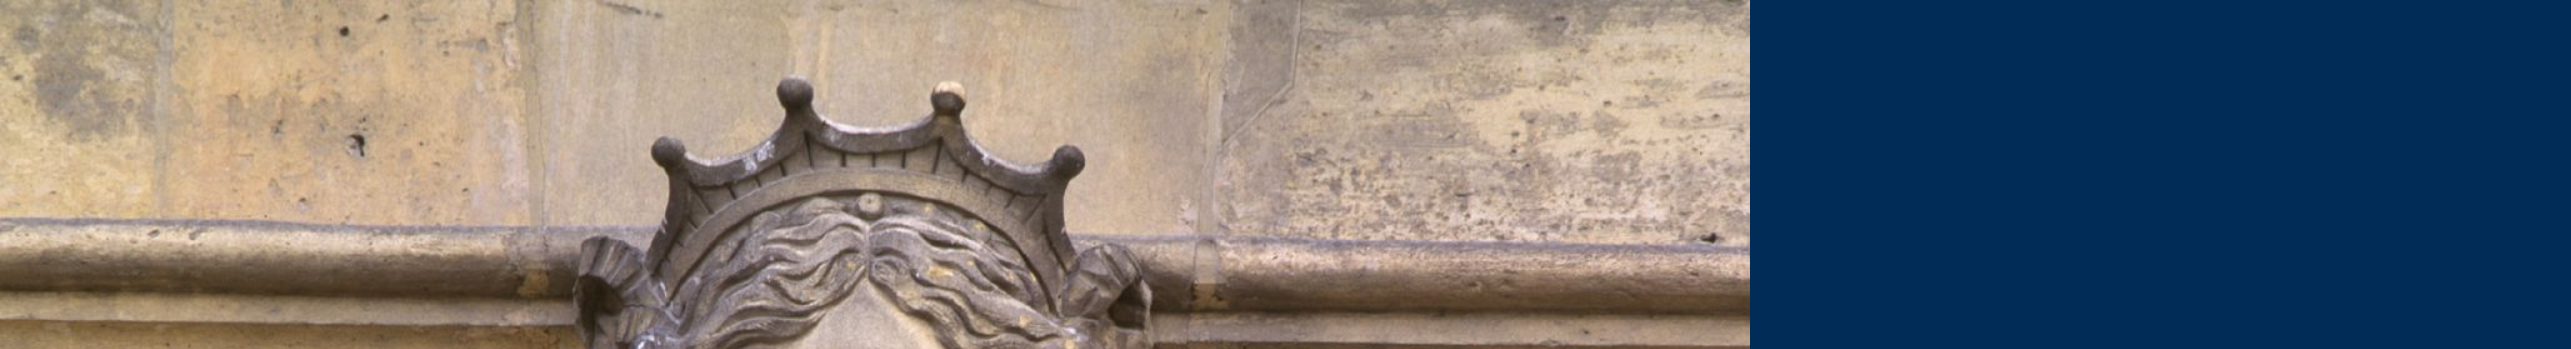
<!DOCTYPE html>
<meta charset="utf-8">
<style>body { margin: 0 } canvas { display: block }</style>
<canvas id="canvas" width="2571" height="349"></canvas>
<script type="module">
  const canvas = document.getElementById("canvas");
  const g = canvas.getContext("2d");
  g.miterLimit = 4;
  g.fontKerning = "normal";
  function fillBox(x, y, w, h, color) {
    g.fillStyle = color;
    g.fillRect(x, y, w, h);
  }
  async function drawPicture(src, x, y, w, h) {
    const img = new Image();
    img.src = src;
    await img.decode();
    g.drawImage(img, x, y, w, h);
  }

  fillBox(0, 0, 2571, 349, "#002C57");
  await drawPicture("pic1.png", 0, 0, 1750, 349);
</script>
